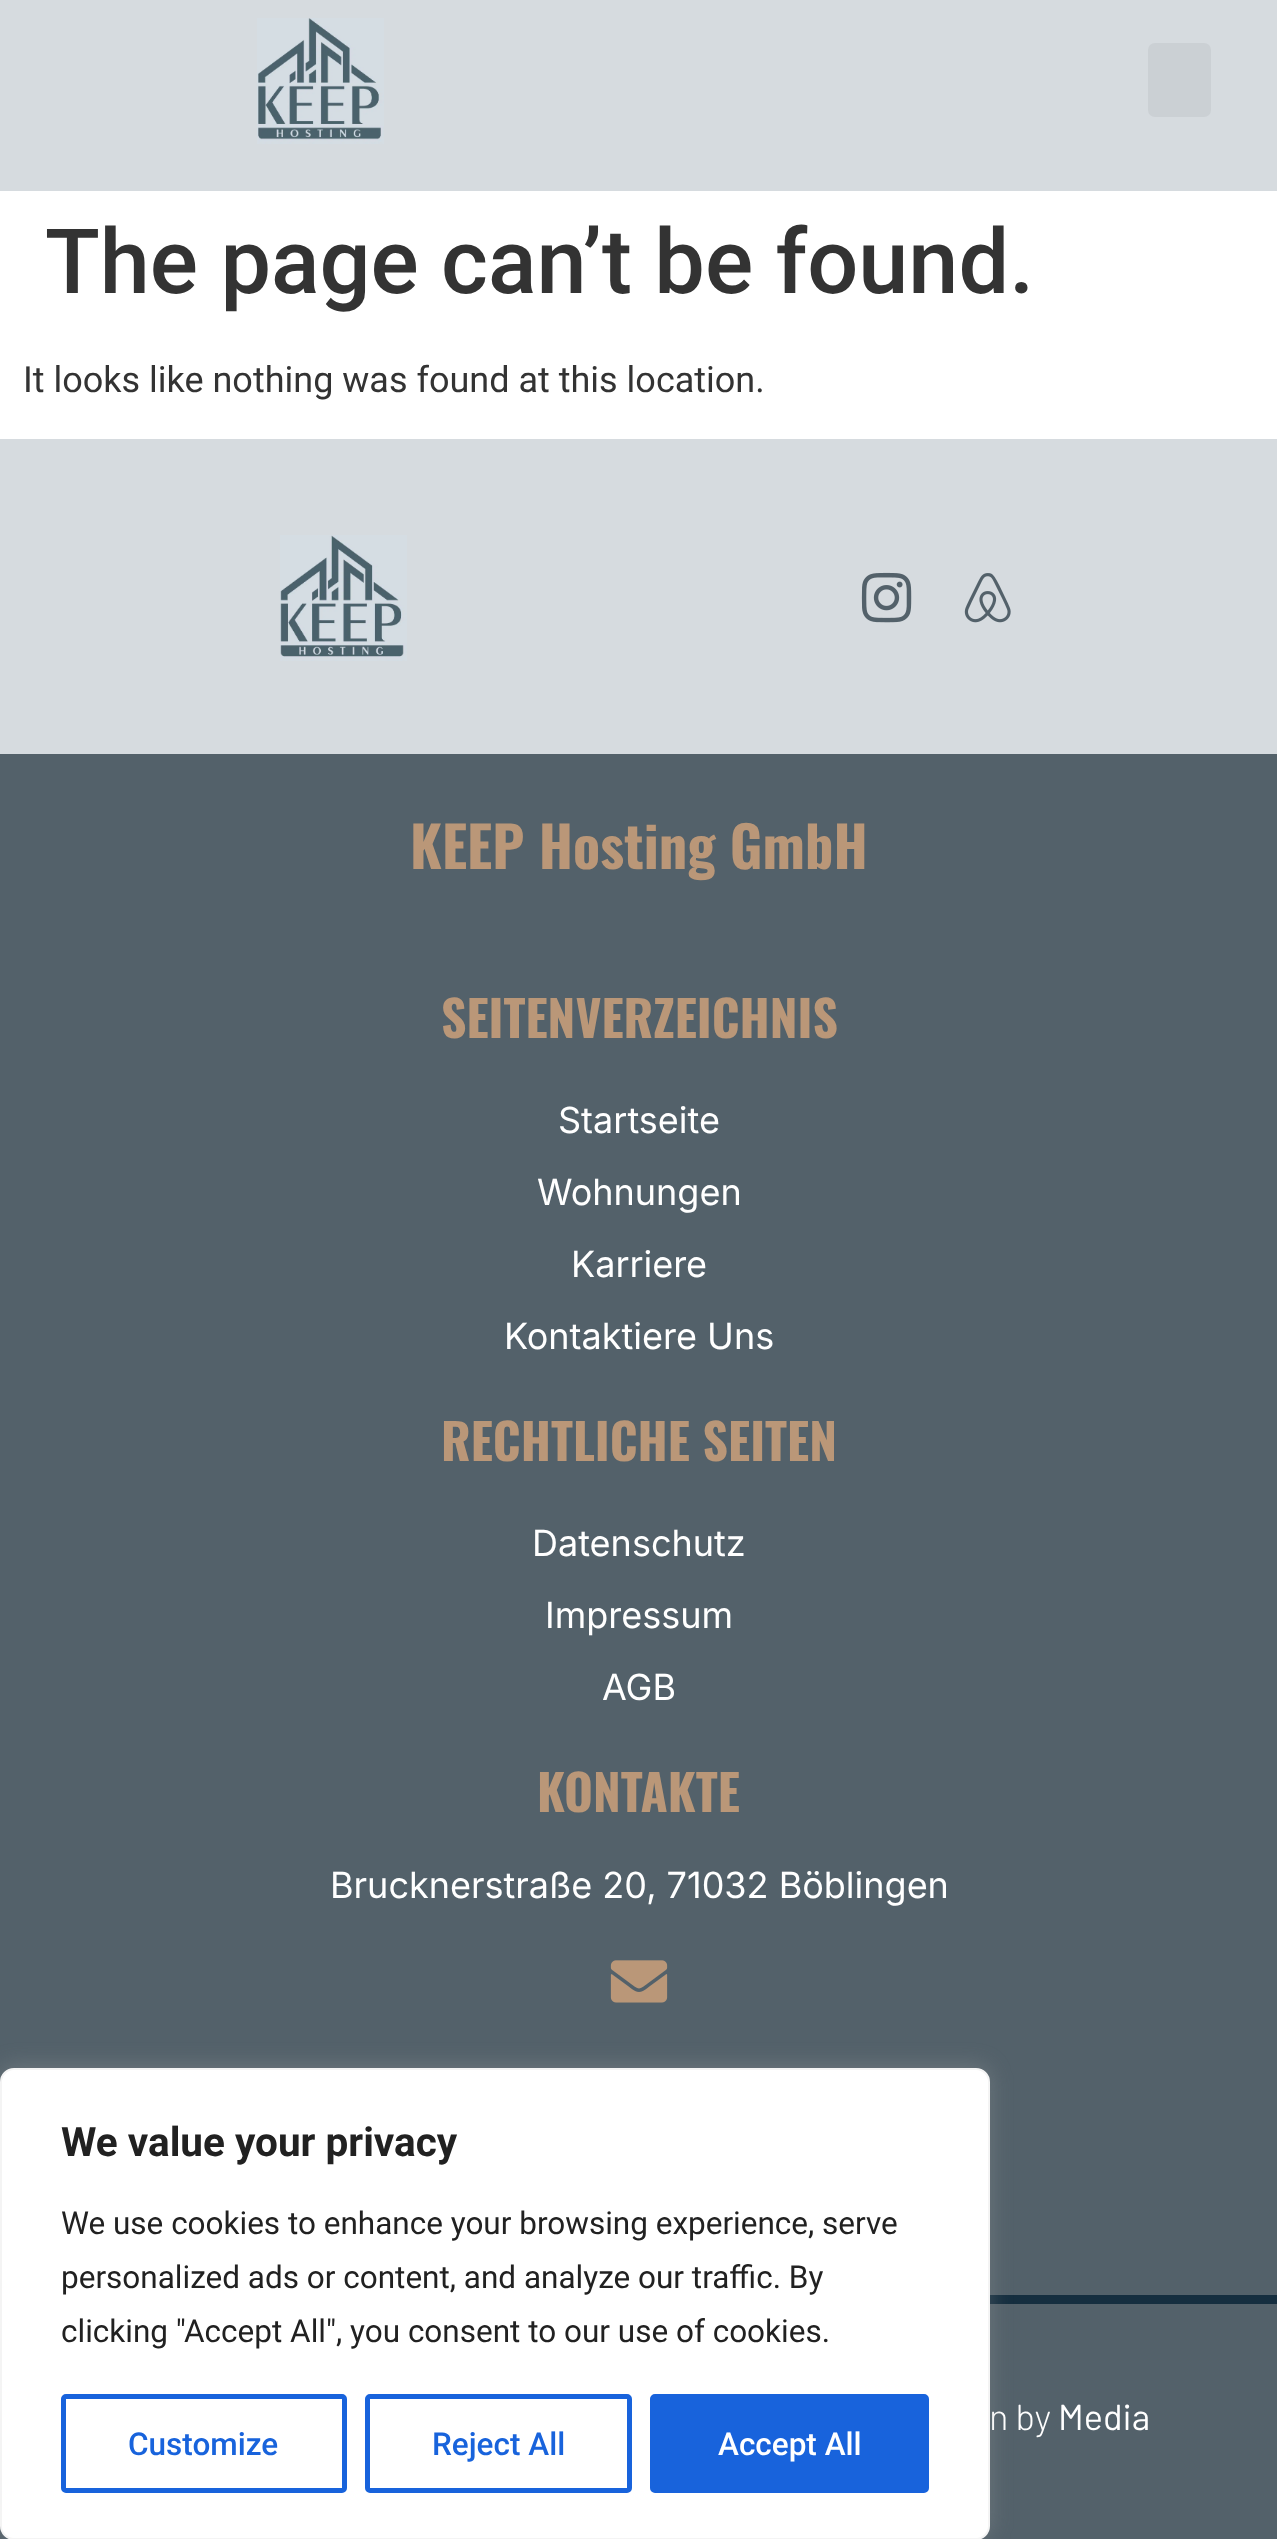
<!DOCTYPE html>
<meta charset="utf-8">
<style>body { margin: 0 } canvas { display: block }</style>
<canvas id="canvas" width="1277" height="2539"></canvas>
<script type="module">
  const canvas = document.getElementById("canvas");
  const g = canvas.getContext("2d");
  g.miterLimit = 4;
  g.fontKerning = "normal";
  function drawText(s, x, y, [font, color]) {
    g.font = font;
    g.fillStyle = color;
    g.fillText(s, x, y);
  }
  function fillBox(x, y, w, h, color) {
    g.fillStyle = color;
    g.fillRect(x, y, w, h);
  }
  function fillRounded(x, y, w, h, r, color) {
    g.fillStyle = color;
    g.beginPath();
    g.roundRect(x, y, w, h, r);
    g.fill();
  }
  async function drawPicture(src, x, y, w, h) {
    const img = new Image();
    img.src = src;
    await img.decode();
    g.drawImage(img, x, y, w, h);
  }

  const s1 = ["500 90px Roboto", "#333333"];
  const s2 = ["36px Roboto", "#333333"];
  const s3 = ["bold 56.25px Oswald", "#BA9778"];
  const s4 = ["bold 49.5px Oswald", "#BA9778"];
  const s5 = ["36px Inter", "#FFFFFF"];
  const s6 = ["300 36px Barlow", "#FFFFFF"];
  const s7 = ["36px Barlow", "#FFFFFF"];
  const s8 = ["bold 40.5px Roboto", "#212121"];
  const s9 = ["31.5px Roboto", "#212121"];
  const s10 = ["500 31.5px Roboto", "#1863DC"];
  const s11 = ["500 31.5px Roboto", "#FFFFFF"];

  fillBox(0, 0, 1277, 2539, "#FFFFFF");
  fillBox(0, 0, 1277, 191, "#D6DBDF");
  await drawPicture("pic1.png", 257, 18, 127, 126);
  fillRounded(1148, 43, 63, 74, 7, "#CBD0D4");
  drawText("The page can’t be found.", 45, 293, s1);
  drawText("It looks like nothing was found at this location.", 23, 392, s2);
  fillBox(0, 754, 1277, 1541, "#53616A");
  fillBox(0, 439, 1277, 315, "#D6DBDF");
  await drawPicture("pic2.png", 280, 535, 127, 126);
  await drawPicture("pic3.png", 861, 572, 51, 51);
  await drawPicture("pic4.png", 964, 573, 47, 50);
  drawText("KEEP Hosting GmbH", 410, 869, s3);
  drawText("SEITENVERZEICHNIS", 441, 1038, s4);
  drawText("Startseite", 558, 1133, s5);
  drawText("Wohnungen", 537, 1205, s5);
  drawText("Karriere", 571, 1277, s5);
  drawText("Kontaktiere Uns", 504, 1349, s5);
  drawText("RECHTLICHE SEITEN", 441, 1461, s4);
  drawText("Datenschutz", 532, 1556, s5);
  drawText("Impressum", 545, 1628, s5);
  drawText("AGB", 602, 1700, s5);
  drawText("KONTAKTE", 537, 1812, s4);
  drawText("Brucknerstraße 20, 71032 Böblingen", 330, 1898, s5);
  await drawPicture("pic5.png", 610, 1960, 58, 43);
  fillBox(0, 2304, 1277, 235, "#53616A");
  fillBox(990, 2295, 287, 9, "#152E3F");
  drawText("n by", 989, 2430, s6);
  drawText("Media", 1058, 2430, s7);
  g.fillStyle = "rgba(172, 171, 171, 0.3)";
  g.filter = "blur(11px)";
  g.beginPath();
  g.roundRect(0, 2066, 990, 472, 14);
  g.fill();
  g.filter = "none";
  g.fillStyle = "#FFFFFF";
  g.beginPath();
  g.roundRect(1, 2069, 988, 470, 13);
  g.fill();
  g.strokeStyle = "#F4F4F4";
  g.lineWidth = 2;
  g.stroke();
  drawText("We value your privacy", 61, 2156, s8);
  drawText("We use cookies to enhance your browsing experience, serve", 61, 2234, s9);
  drawText("personalized ads or content, and analyze our traffic. By", 61, 2288, s9);
  drawText("clicking \"Accept All\", you consent to our use of cookies.", 61, 2342, s9);
  g.beginPath();
  g.roundRect(63.5, 2396.5, 281, 94, 2.5);
  g.strokeStyle = "#1863DC";
  g.lineWidth = 5;
  g.stroke();
  drawText("Customize", 128, 2455, s10);
  g.beginPath();
  g.roundRect(367.5, 2396.5, 262, 94, 2.5);
  g.stroke();
  drawText("Reject All", 432, 2455, s10);
  g.beginPath();
  g.roundRect(652.5, 2396.5, 274, 94, 2.5);
  g.fill();
  g.stroke();
  drawText("Accept All", 718, 2455, s11);
</script>
